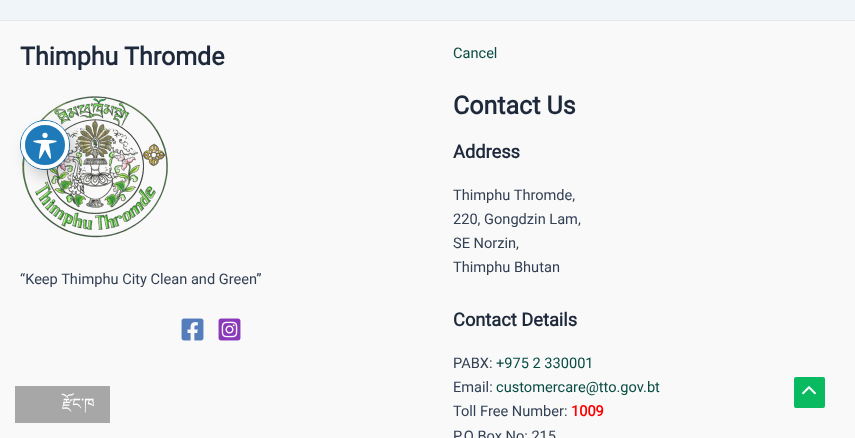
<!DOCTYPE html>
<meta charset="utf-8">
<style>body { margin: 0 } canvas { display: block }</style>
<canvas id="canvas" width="855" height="438"></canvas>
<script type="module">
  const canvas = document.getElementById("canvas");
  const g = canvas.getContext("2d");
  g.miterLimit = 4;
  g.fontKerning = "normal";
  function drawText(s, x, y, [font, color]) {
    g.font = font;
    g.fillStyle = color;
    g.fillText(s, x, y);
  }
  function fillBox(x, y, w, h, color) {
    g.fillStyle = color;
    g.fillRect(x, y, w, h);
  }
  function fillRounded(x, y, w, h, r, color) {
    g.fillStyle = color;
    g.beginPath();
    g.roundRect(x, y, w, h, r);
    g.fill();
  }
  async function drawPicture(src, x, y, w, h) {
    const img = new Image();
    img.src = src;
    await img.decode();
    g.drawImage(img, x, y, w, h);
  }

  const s1 = ["bold 25px Roboto", "#1E293B"];
  const s2 = ["14.6px Roboto", "#334155"];
  const s3 = ["14.6px Roboto", "#084C42"];
  const s4 = ["bold 18.25px Roboto", "#1E293B"];
  const s5 = ["bold 14.6px Roboto", "#FF0000"];
  const s6 = ["15px Noto Serif Tibetan", "#FFFFFF"];

  fillBox(0, 0, 855, 438, "#F0F5FA");
  fillBox(0, 21, 855, 417, "#F9F9F9");
  fillBox(0, 20, 855, 1, "#E6E6E6");
  drawText("Thimphu Thromde", 20, 65, s1);
  await drawPicture("pic1.png", 22, 96, 146, 142);
  drawText("“Keep Thimphu City Clean and Green”", 20, 284, s2);
  await drawPicture("pic2.png", 181, 318, 23, 23);
  await drawPicture("pic3.png", 218, 318, 23, 23);
  drawText("Cancel", 453, 58, s3);
  drawText("Contact Us", 453, 114, s1);
  drawText("Address", 453, 158, s4);
  drawText("Thimphu Thromde,", 453, 200, s2);
  drawText("220, Gongdzin Lam,", 453, 224, s2);
  drawText("SE Norzin,", 453, 248, s2);
  drawText("Thimphu Bhutan", 453, 272, s2);
  drawText("Contact Details", 453, 326, s4);
  drawText("PABX:", 453, 368, s2);
  drawText("+975 2 330001", 496, 368, s3);
  drawText("Email:", 453, 392, s2);
  drawText("customercare@tto.gov.bt", 496, 392, s3);
  drawText("Toll Free Number:", 453, 416, s2);
  drawText("1009", 571, 416, s5);
  drawText("P.O Box No: 215", 453, 441, s2);
  g.beginPath();
  g.arc(45, 145, 24.5, 0, Math.PI * 2);
  g.strokeStyle = "#1E7AB9";
  g.stroke();
  g.fillStyle = "rgba(0, 0, 0, 0.2)";
  g.filter = "blur(8px)";
  g.beginPath();
  g.roundRect(27, 129, 48, 48, 24);
  g.fill();
  g.filter = "none";
  g.fillStyle = "#1E7AB9";
  g.beginPath();
  g.arc(45, 145, 22, 0, Math.PI * 2);
  g.fill();
  g.strokeStyle = "#FFFFFF";
  g.lineWidth = 4;
  g.stroke();
  await drawPicture("pic4.png", 33, 132, 24, 27);
  fillBox(15, 386, 95, 37, "#A7A7A7");
  drawText("རྫོང་ཁ", 62, 409, s6);
  fillRounded(794, 377, 31, 31, 2, "#09BA61");
  await drawPicture("pic5.png", 802, 386, 15, 9);
</script>
